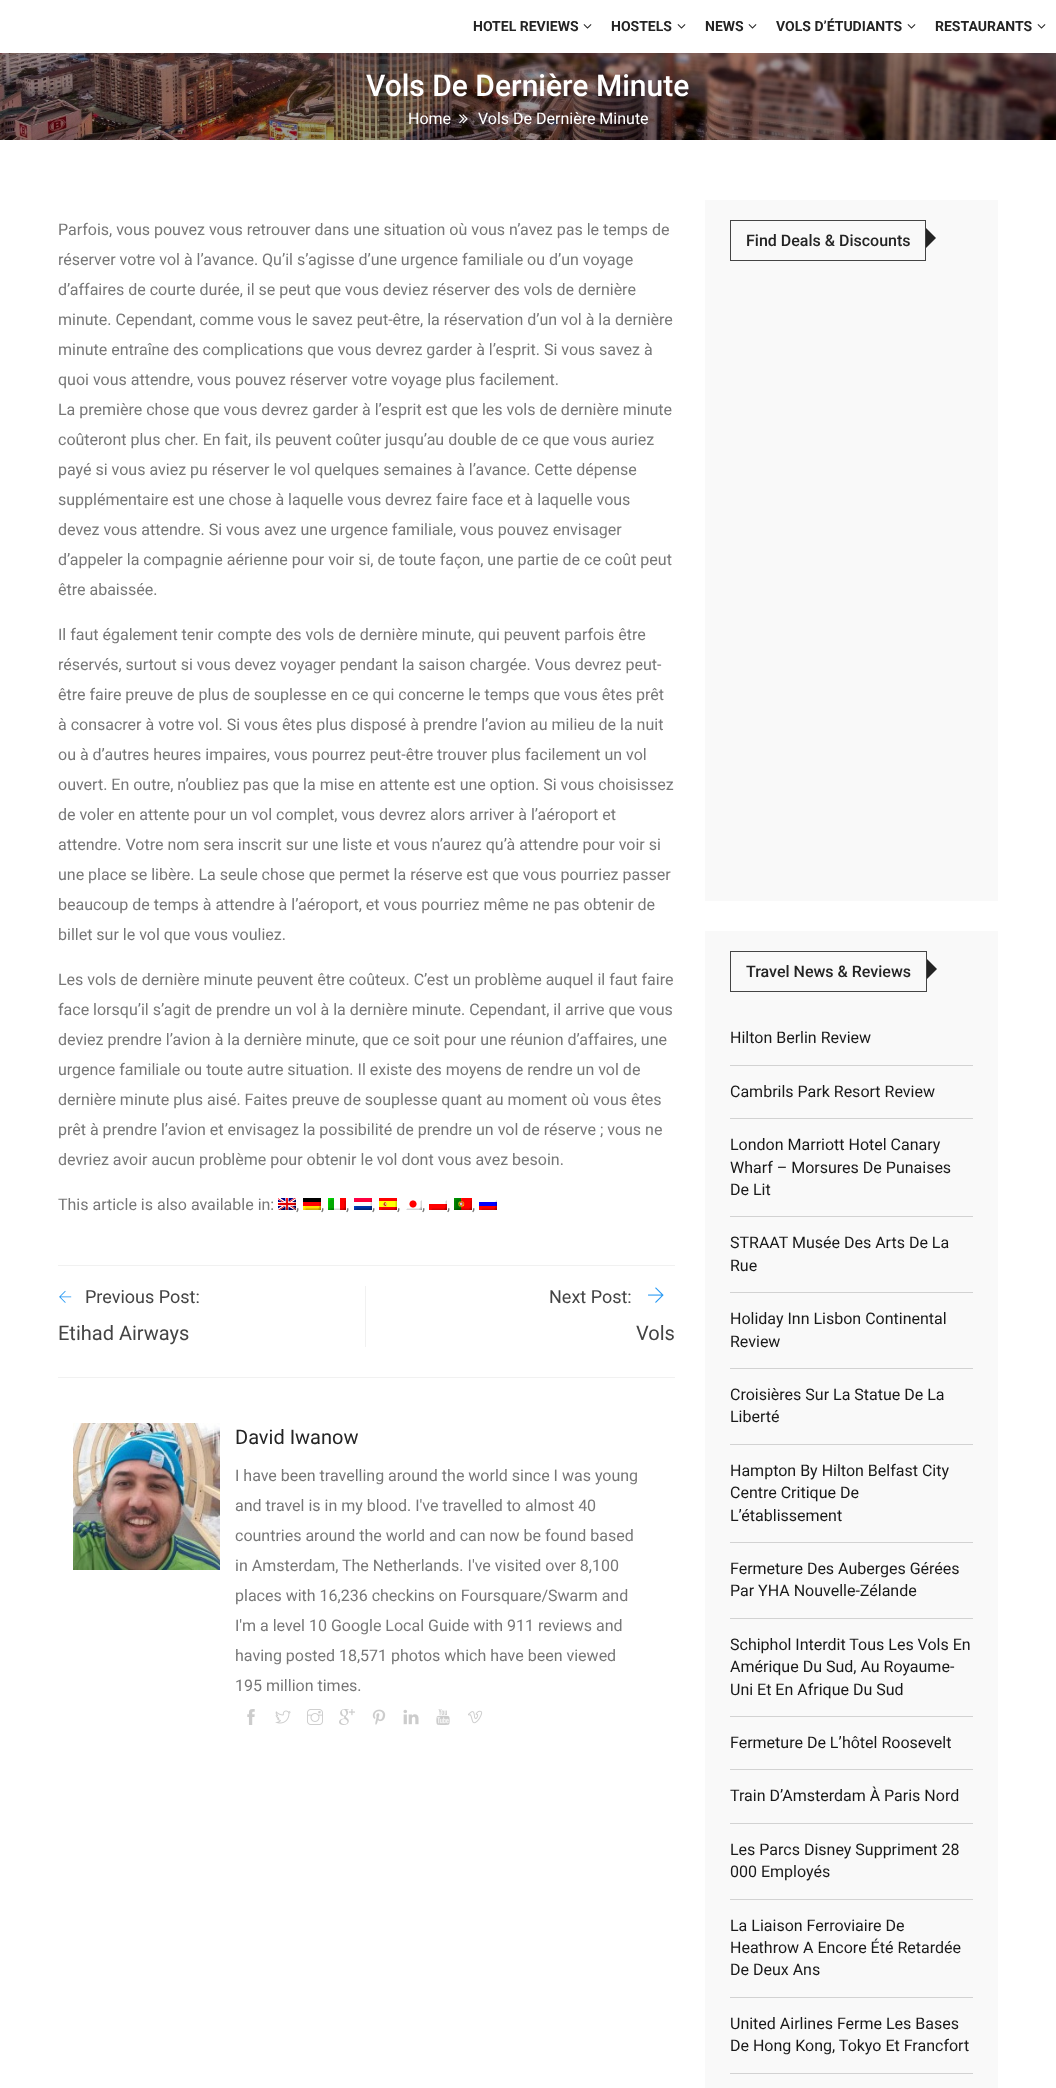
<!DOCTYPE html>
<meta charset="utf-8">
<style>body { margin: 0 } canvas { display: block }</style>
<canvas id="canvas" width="1056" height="2088"></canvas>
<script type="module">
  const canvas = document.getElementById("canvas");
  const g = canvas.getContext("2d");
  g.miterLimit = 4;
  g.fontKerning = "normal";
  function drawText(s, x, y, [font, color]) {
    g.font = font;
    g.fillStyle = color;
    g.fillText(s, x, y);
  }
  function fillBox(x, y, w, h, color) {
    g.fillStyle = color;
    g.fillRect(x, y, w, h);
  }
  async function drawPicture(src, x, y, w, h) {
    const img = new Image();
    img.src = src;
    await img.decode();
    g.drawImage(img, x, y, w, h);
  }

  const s1 = ["bold 14px Roboto", "#242424"];
  const s2 = ["500 30px Roboto", "#FFFFFF"];
  const s3 = ["16px Roboto", "#FFFFFF"];
  const s4 = ["16px Roboto", "#777777"];
  const s5 = ["18px Roboto", "#444444"];
  const s6 = ["20px Roboto", "#444444"];
  const s7 = ["20px Roboto", "#242424"];
  const s8 = ["500 16px Roboto", "#242424"];
  const s9 = ["16px Roboto", "#191919"];

  fillBox(0, 0, 1056, 2088, "#FFFFFF");
  drawText("HOTEL REVIEWS", 473, 31, s1);
  await drawPicture("pic1.png", 583, 24, 9, 5);
  drawText("HOSTELS", 611, 31, s1);
  await drawPicture("pic1.png", 677, 24, 9, 5);
  drawText("NEWS", 705, 31, s1);
  await drawPicture("pic1.png", 748, 24, 9, 5);
  drawText("VOLS D’ÉTUDIANTS", 776, 31, s1);
  await drawPicture("pic1.png", 907, 24, 9, 5);
  drawText("RESTAURANTS", 935, 31, s1);
  await drawPicture("pic1.png", 1037, 24, 9, 5);
  await drawPicture("pic2.png", 0, 53, 1056, 87);
  drawText("Vols De Dernière Minute", 366, 96, s2);
  drawText("Home", 408, 124, s3);
  await drawPicture("pic3.png", 459, 114, 9, 10);
  drawText("Vols De Dernière Minute", 478, 124, s3);
  drawText("Parfois, vous pouvez vous retrouver dans une situation où vous n’avez pas le temps de", 58, 235, s4);
  drawText("réserver votre vol à l’avance. Qu’il s’agisse d’une urgence familiale ou d’un voyage", 58, 265, s4);
  drawText("d’affaires de courte durée, il se peut que vous deviez réserver des vols de dernière", 58, 295, s4);
  drawText("minute. Cependant, comme vous le savez peut-être, la réservation d’un vol à la dernière", 58, 325, s4);
  drawText("minute entraîne des complications que vous devrez garder à l’esprit. Si vous savez à", 58, 355, s4);
  drawText("quoi vous attendre, vous pouvez réserver votre voyage plus facilement.", 58, 385, s4);
  drawText("La première chose que vous devrez garder à l’esprit est que les vols de dernière minute", 58, 415, s4);
  drawText("coûteront plus cher. En fait, ils peuvent coûter jusqu’au double de ce que vous auriez", 58, 445, s4);
  drawText("payé si vous aviez pu réserver le vol quelques semaines à l’avance. Cette dépense", 58, 475, s4);
  drawText("supplémentaire est une chose à laquelle vous devrez faire face et à laquelle vous", 58, 505, s4);
  drawText("devez vous attendre. Si vous avez une urgence familiale, vous pouvez envisager", 58, 535, s4);
  drawText("d’appeler la compagnie aérienne pour voir si, de toute façon, une partie de ce coût peut", 58, 565, s4);
  drawText("être abaissée.", 58, 595, s4);
  drawText("Il faut également tenir compte des vols de dernière minute, qui peuvent parfois être", 58, 640, s4);
  drawText("réservés, surtout si vous devez voyager pendant la saison chargée. Vous devrez peut-", 58, 670, s4);
  drawText("être faire preuve de plus de souplesse en ce qui concerne le temps que vous êtes prêt", 58, 700, s4);
  drawText("à consacrer à votre vol. Si vous êtes plus disposé à prendre l’avion au milieu de la nuit", 58, 730, s4);
  drawText("ou à d’autres heures impaires, vous pourrez peut-être trouver plus facilement un vol", 58, 760, s4);
  drawText("ouvert. En outre, n’oubliez pas que la mise en attente est une option. Si vous choisissez", 58, 790, s4);
  drawText("de voler en attente pour un vol complet, vous devrez alors arriver à l’aéroport et", 58, 820, s4);
  drawText("attendre. Votre nom sera inscrit sur une liste et vous n’aurez qu’à attendre pour voir si", 58, 850, s4);
  drawText("une place se libère. La seule chose que permet la réserve est que vous pourriez passer", 58, 880, s4);
  drawText("beaucoup de temps à attendre à l’aéroport, et vous pourriez même ne pas obtenir de", 58, 910, s4);
  drawText("billet sur le vol que vous vouliez.", 58, 940, s4);
  drawText("Les vols de dernière minute peuvent être coûteux. C’est un problème auquel il faut faire", 58, 985, s4);
  drawText("face lorsqu’il s’agit de prendre un vol à la dernière minute. Cependant, il arrive que vous", 58, 1015, s4);
  drawText("deviez prendre l’avion à la dernière minute, que ce soit pour une réunion d’affaires, une", 58, 1045, s4);
  drawText("urgence familiale ou toute autre situation. Il existe des moyens de rendre un vol de", 58, 1075, s4);
  drawText("dernière minute plus aisé. Faites preuve de souplesse quant au moment où vous êtes", 58, 1105, s4);
  drawText("prêt à prendre l’avion et envisagez la possibilité de prendre un vol de réserve ; vous ne", 58, 1135, s4);
  drawText("devriez avoir aucun problème pour obtenir le vol dont vous avez besoin.", 58, 1165, s4);
  drawText("This article is also available in:", 58, 1210, s4);
  await drawPicture("pic4.png", 479, 1200, 18, 10);
  await drawPicture("pic5.png", 278, 1198, 18, 12);
  drawText(",", 296, 1210, s4);
  await drawPicture("pic6.png", 303, 1198, 18, 12);
  drawText(",", 321, 1210, s4);
  await drawPicture("pic7.png", 328, 1198, 18, 12);
  drawText(",", 346, 1210, s4);
  await drawPicture("pic8.png", 354, 1198, 18, 12);
  drawText(",", 372, 1210, s4);
  await drawPicture("pic9.png", 379, 1198, 18, 12);
  drawText(",", 397, 1210, s4);
  await drawPicture("pic10.png", 406, 1200, 16, 10);
  drawText(",", 422, 1210, s4);
  await drawPicture("pic11.png", 429, 1200, 18, 10);
  drawText(",", 447, 1210, s4);
  await drawPicture("pic12.png", 454, 1198, 18, 12);
  drawText(",", 472, 1210, s4);
  fillBox(58, 1265, 617, 1, "#F1F1F1");
  fillBox(58, 1377, 617, 1, "#F1F1F1");
  fillBox(365, 1286, 1, 61, "#F1F1F1");
  await drawPicture("pic13.png", 59, 1290, 13, 13);
  drawText("Previous Post:", 85, 1303, s5);
  drawText("Etihad Airways", 58, 1340, s6);
  drawText("Next Post:", 549, 1303, s5);
  await drawPicture("pic14.png", 648, 1287, 16, 16);
  drawText("Vols", 636, 1340, s6);
  await drawPicture("pic15.png", 73, 1423, 147, 147);
  drawText("David Iwanow", 235, 1444, s7);
  drawText("I have been travelling around the world since I was young", 235, 1481, s4);
  drawText("and travel is in my blood. I've travelled to almost 40", 235, 1511, s4);
  drawText("countries around the world and can now be found based", 235, 1541, s4);
  drawText("in Amsterdam, The Netherlands. I've visited over 8,100", 235, 1571, s4);
  drawText("places with 16,236 checkins on Foursquare/Swarm and", 235, 1601, s4);
  drawText("I'm a level 10 Google Local Guide with 911 reviews and", 235, 1631, s4);
  drawText("having posted 18,571 photos which have been viewed", 235, 1661, s4);
  drawText("195 million times.", 235, 1691, s4);
  await drawPicture("pic16.png", 247, 1709, 8, 16);
  await drawPicture("pic17.png", 275, 1710, 16, 14);
  await drawPicture("pic18.png", 307, 1709, 16, 16);
  await drawPicture("pic19.png", 339, 1709, 16, 16);
  await drawPicture("pic20.png", 372, 1709, 14, 16);
  await drawPicture("pic21.png", 403, 1709, 16, 16);
  await drawPicture("pic22.png", 436, 1709, 14, 16);
  await drawPicture("pic23.png", 468, 1710, 15, 14);
  fillBox(705, 200, 293, 701, "#F9F9F9");
  g.strokeStyle = "#444444";
  g.strokeRect(730.5, 220.5, 195, 40);
  drawText("Find Deals & Discounts", 746, 246, s8);
  g.beginPath();
  g.moveTo(926, 248);
  g.lineTo(926, 228);
  g.lineTo(936, 238);
  g.closePath();
  g.fill();
  fillBox(705, 931, 293, 1157, "#F9F9F9");
  g.strokeRect(730.5, 951.5, 196, 40);
  drawText("Travel News & Reviews", 746, 977, s8);
  g.beginPath();
  g.moveTo(927, 979);
  g.lineTo(927, 959);
  g.lineTo(937, 969);
  g.closePath();
  g.fill();
  fillBox(730, 1065, 243, 1, "#D2D2D2");
  drawText("Hilton Berlin Review", 730, 1043, s9);
  fillBox(730, 1118, 243, 1, "#D2D2D2");
  drawText("Cambrils Park Resort Review", 730, 1097, s9);
  fillBox(730, 1216, 243, 1, "#D2D2D2");
  drawText("London Marriott Hotel Canary", 730, 1150, s9);
  drawText("Wharf – Morsures De Punaises", 730, 1173, s9);
  drawText("De Lit", 730, 1195, s9);
  fillBox(730, 1292, 243, 1, "#D2D2D2");
  drawText("STRAAT Musée Des Arts De La", 730, 1248, s9);
  drawText("Rue", 730, 1271, s9);
  fillBox(730, 1368, 243, 1, "#D2D2D2");
  drawText("Holiday Inn Lisbon Continental", 730, 1324, s9);
  drawText("Review", 730, 1347, s9);
  fillBox(730, 1444, 243, 1, "#D2D2D2");
  drawText("Croisières Sur La Statue De La", 730, 1400, s9);
  drawText("Liberté", 730, 1422, s9);
  fillBox(730, 1542, 243, 1, "#D2D2D2");
  drawText("Hampton By Hilton Belfast City", 730, 1476, s9);
  drawText("Centre Critique De", 730, 1498, s9);
  drawText("L’établissement", 730, 1521, s9);
  fillBox(730, 1618, 243, 1, "#D2D2D2");
  drawText("Fermeture Des Auberges Gérées", 730, 1574, s9);
  drawText("Par YHA Nouvelle-Zélande", 730, 1596, s9);
  fillBox(730, 1716, 243, 1, "#D2D2D2");
  drawText("Schiphol Interdit Tous Les Vols En", 730, 1650, s9);
  drawText("Amérique Du Sud, Au Royaume-", 730, 1672, s9);
  drawText("Uni Et En Afrique Du Sud", 730, 1695, s9);
  fillBox(730, 1769, 243, 1, "#D2D2D2");
  drawText("Fermeture De L’hôtel Roosevelt", 730, 1748, s9);
  fillBox(730, 1823, 243, 1, "#D2D2D2");
  drawText("Train D’Amsterdam À Paris Nord", 730, 1801, s9);
  fillBox(730, 1899, 243, 1, "#D2D2D2");
  drawText("Les Parcs Disney Suppriment 28", 730, 1855, s9);
  drawText("000 Employés", 730, 1877, s9);
  fillBox(730, 1997, 243, 1, "#D2D2D2");
  drawText("La Liaison Ferroviaire De", 730, 1931, s9);
  drawText("Heathrow A Encore Été Retardée", 730, 1953, s9);
  drawText("De Deux Ans", 730, 1975, s9);
  fillBox(730, 2073, 243, 1, "#D2D2D2");
  drawText("United Airlines Ferme Les Bases", 730, 2029, s9);
  drawText("De Hong Kong, Tokyo Et Francfort", 730, 2051, s9);
</script>
